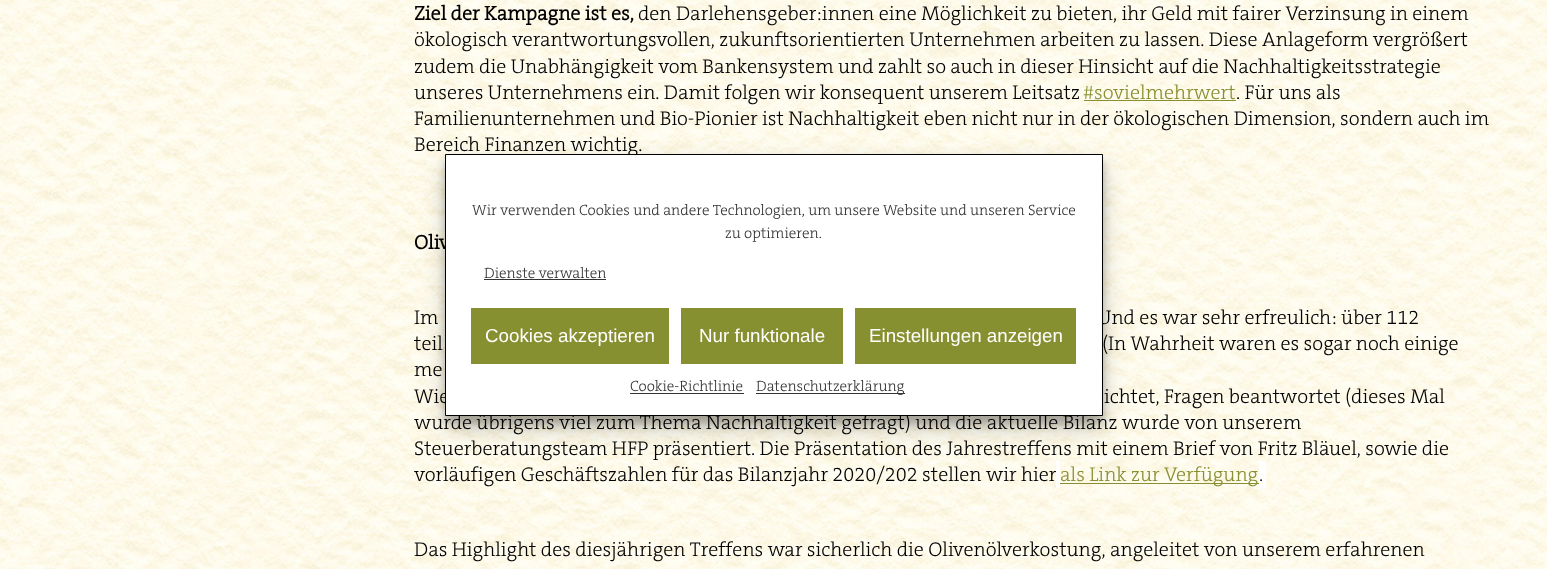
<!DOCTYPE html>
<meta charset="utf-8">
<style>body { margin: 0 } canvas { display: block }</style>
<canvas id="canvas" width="1547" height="569"></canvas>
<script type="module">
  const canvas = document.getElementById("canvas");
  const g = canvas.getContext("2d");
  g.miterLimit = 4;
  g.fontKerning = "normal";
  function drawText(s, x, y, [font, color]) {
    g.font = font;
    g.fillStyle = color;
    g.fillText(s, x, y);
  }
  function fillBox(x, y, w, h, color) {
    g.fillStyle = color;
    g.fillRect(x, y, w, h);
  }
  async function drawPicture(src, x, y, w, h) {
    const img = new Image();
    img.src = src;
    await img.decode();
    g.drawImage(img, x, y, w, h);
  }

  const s1 = ["bold 20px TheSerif", "#000000"];
  const s2 = ["300 20px TheSerif", "#000000"];
  const s3 = ["300 20px TheSerif", "#879031"];
  const s4 = ["300 20px TheSerif", "#202020"];
  const s5 = ["300 15px TheSerif", "#333333"];
  const s6 = ["18.75px Liberation Sans", "#FFFFFF"];

  fillBox(0, 0, 1547, 569, "#FFFFFF");
  await drawPicture("pic1.png", 0, 0, 1547, 569);
  drawText("Ziel der Kampagne ist es,", 414, 20, s1);
  drawText("den Darlehensgeber:innen eine Möglichkeit zu bieten, ihr Geld mit fairer Verzinsung in einem", 638, 20, s2);
  drawText("ökologisch verantwortungsvollen, zukunftsorientierten Unternehmen arbeiten zu lassen. Diese Anlageform vergrößert", 414, 46, s2);
  drawText("zudem die Unabhängigkeit vom Bankensystem und zahlt so auch in dieser Hinsicht auf die Nachhaltigkeitsstrategie", 414, 73, s2);
  drawText("unseres Unternehmens ein. Damit folgen wir konsequent unserem Leitsatz", 414, 99, s2);
  drawText("#sovielmehrwert", 1083, 99, s3);
  fillBox(1084, 100, 152, 1, "#879031");
  drawText(". Für uns als", 1236, 99, s2);
  drawText("Familienunternehmen und Bio-Pionier ist Nachhaltigkeit eben nicht nur in der ökologischen Dimension, sondern auch im", 414, 125, s2);
  drawText("Bereich Finanzen wichtig.", 414, 151, s2);
  drawText("Oliv", 414, 249, s1);
  drawText("Im", 414, 324, s2);
  drawText("Und es war sehr erfreulich: über 112", 1097, 324, s2);
  drawText("teil", 414, 350, s2);
  drawText("(In Wahrheit waren es sogar noch einige", 1102, 350, s2);
  drawText("me", 414, 376, s2);
  drawText("Wie", 414, 403, s2);
  drawText("ichtet, Fragen beantwortet (dieses Mal", 1104, 403, s2);
  drawText("wurde übrigens viel zum Thema Nachhaltigkeit gefragt) und die aktuelle Bilanz wurde von unserem", 414, 429, s2);
  drawText("Steuerberatungsteam HFP präsentiert. Die Präsentation des Jahrestreffens mit einem Brief von Fritz Bläuel, sowie die", 414, 455, s2);
  drawText("vorläufigen Geschäftszahlen für das Bilanzjahr 2020/202 stellen wir hier", 414, 481, s2);
  fillBox(1056, 461, 4, 27, "#FFFFFF");
  fillBox(1060, 483, 199, 1, "#879031");
  drawText("als Link zur Verfügung", 1060, 481, s3);
  fillBox(1259, 461, 7, 27, "#FFFFFF");
  drawText(".", 1259, 481, s4);
  drawText("Das Highlight des diesjährigen Treffens war sicherlich die Olivenölverkostung, angeleitet von unserem erfahrenen", 414, 556, s2);
  g.fillStyle = "rgba(0, 0, 0, 0.23)";
  g.filter = "blur(4px)";
  g.beginPath();
  g.rect(445, 161, 658, 263);
  g.fill();
  g.filter = "none";
  g.fillStyle = "rgba(0, 0, 0, 0.19)";
  g.filter = "blur(12.5px)";
  g.beginPath();
  g.rect(445, 166, 658, 263);
  g.fill();
  g.filter = "none";
  g.fillStyle = "#FFFFFF";
  g.beginPath();
  g.rect(445.5, 154.5, 657, 261);
  g.fill();
  g.strokeStyle = "#000000";
  g.stroke();
  drawText("Wir verwenden Cookies und andere Technologien, um unsere Website und unseren Service", 472, 215, s5);
  drawText("zu optimieren.", 725, 238, s5);
  drawText("Dienste verwalten", 484, 278, s5);
  fillBox(484, 279, 122, 1, "#333333");
  fillBox(471, 308, 198, 56, "#879031");
  drawText("Cookies akzeptieren", 485, 342, s6);
  fillBox(681, 308, 162, 56, "#879031");
  drawText("Nur funktionale", 699, 342, s6);
  fillBox(855, 308, 221, 56, "#879031");
  drawText("Einstellungen anzeigen", 869, 342, s6);
  drawText("Cookie-Richtlinie", 630, 391, s5);
  fillBox(630, 393, 114, 1, "#333333");
  fillBox(756, 393, 149, 1, "#333333");
  drawText("Datenschutzerklärung", 756, 391, s5);
</script>
